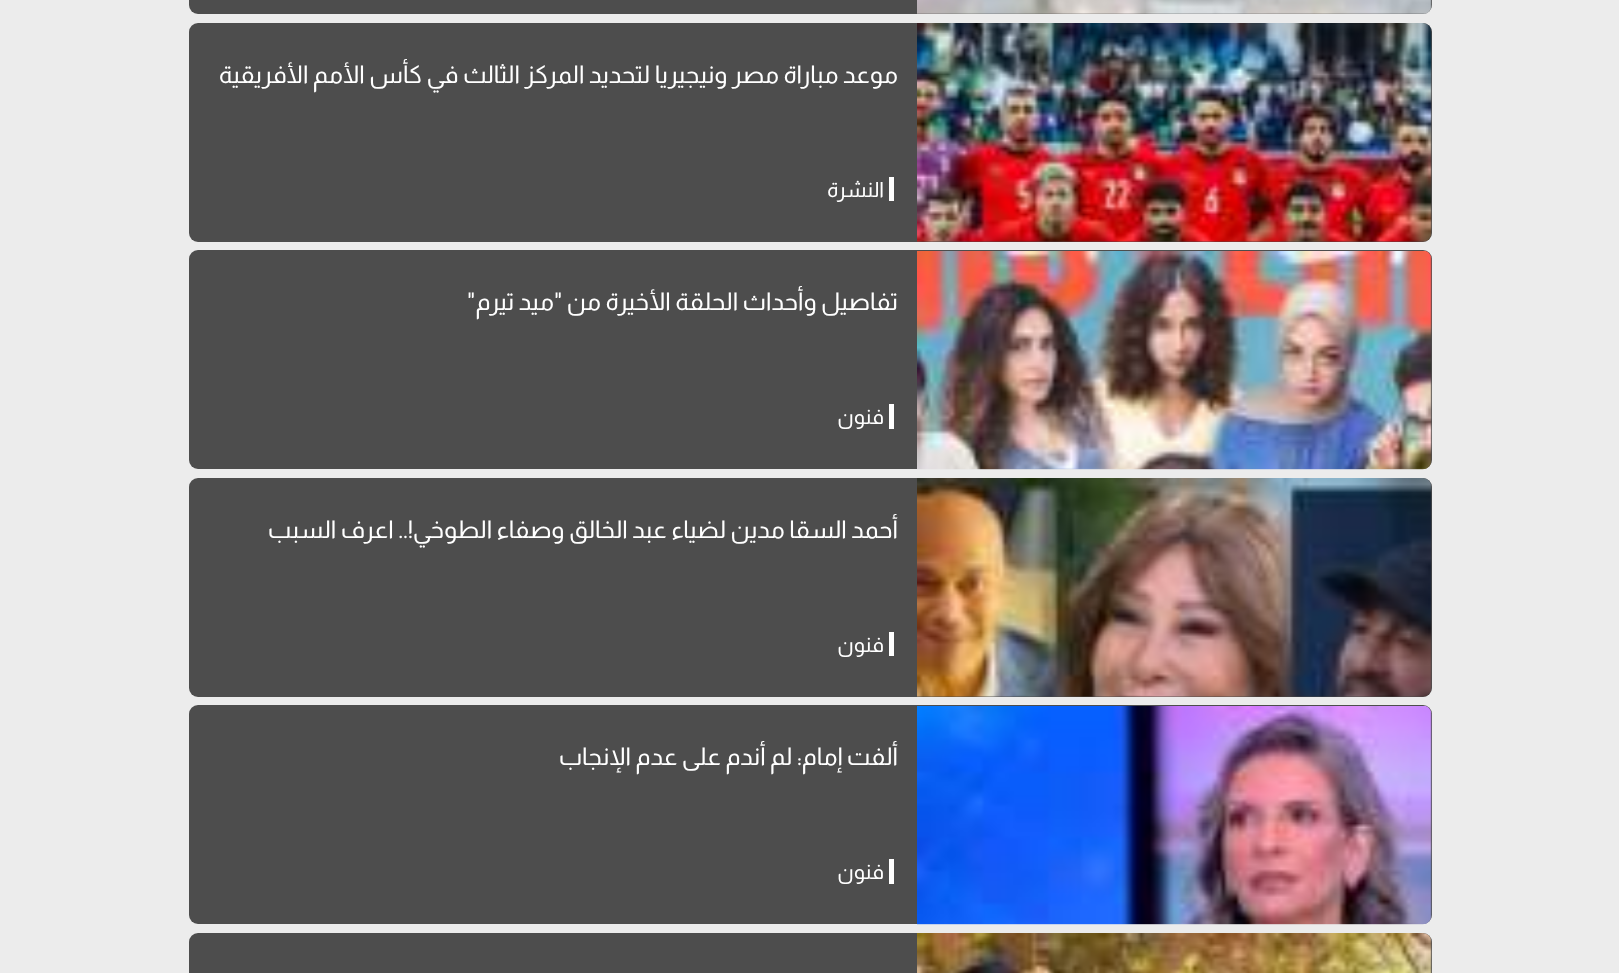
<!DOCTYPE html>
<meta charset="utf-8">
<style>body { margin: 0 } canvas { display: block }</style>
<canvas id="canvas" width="1619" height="973"></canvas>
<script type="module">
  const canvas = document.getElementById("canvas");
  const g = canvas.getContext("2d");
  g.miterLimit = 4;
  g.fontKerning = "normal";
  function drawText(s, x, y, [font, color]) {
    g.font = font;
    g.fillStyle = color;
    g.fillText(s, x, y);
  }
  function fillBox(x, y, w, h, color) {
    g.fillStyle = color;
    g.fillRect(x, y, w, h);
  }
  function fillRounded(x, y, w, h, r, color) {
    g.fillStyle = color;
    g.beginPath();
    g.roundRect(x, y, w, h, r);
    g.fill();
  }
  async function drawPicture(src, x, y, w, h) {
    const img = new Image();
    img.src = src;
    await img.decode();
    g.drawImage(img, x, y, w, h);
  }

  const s1 = ["24.5px Almarai", "#FFFFFF"];
  const s2 = ["21px Almarai", "#FFFFFF"];

  fillBox(0, 0, 1619, 973, "#ECECEC");
  fillRounded(189, -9, 1243, 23, 9, "#4D4D4D");
  await drawPicture("pic1.png", 917, 0, 515, 14);
  fillRounded(189, 23, 1243, 219, 9, "#4D4D4D");
  await drawPicture("pic2.png", 917, 23, 515, 219);
  g.direction = "rtl";
  drawText("موعد مباراة مصر ونيجيريا لتحديد المركز الثالث في كأس الأمم الأفريقية", 898, 83, s1);
  drawText("النشرة", 884, 197, s2);
  fillBox(889, 177, 5, 24, "#FFFFFF");
  fillRounded(189, 250, 1243, 219, 9, "#4D4D4D");
  await drawPicture("pic3.png", 917, 251, 515, 219);
  drawText("تفاصيل وأحداث الحلقة الأخيرة من \"ميد تيرم\"", 898, 310, s1);
  drawText("فنون", 884, 424, s2);
  fillBox(889, 404, 5, 25, "#FFFFFF");
  fillRounded(189, 478, 1243, 219, 9, "#4D4D4D");
  await drawPicture("pic4.png", 917, 478, 515, 219);
  drawText("أحمد السقا مدين لضياء عبد الخالق وصفاء الطوخي!.. اعرف السبب", 898, 538, s1);
  drawText("فنون", 884, 652, s2);
  fillBox(889, 632, 5, 24, "#FFFFFF");
  fillRounded(189, 705, 1243, 219, 9, "#4D4D4D");
  await drawPicture("pic5.png", 917, 706, 515, 219);
  drawText("ألفت إمام: لم أندم على عدم الإنجاب", 898, 765, s1);
  drawText("فنون", 884, 879, s2);
  fillBox(889, 859, 5, 25, "#FFFFFF");
  fillRounded(189, 933, 1243, 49, 9, "#4D4D4D");
  await drawPicture("pic6.png", 917, 933, 515, 40);
</script>
